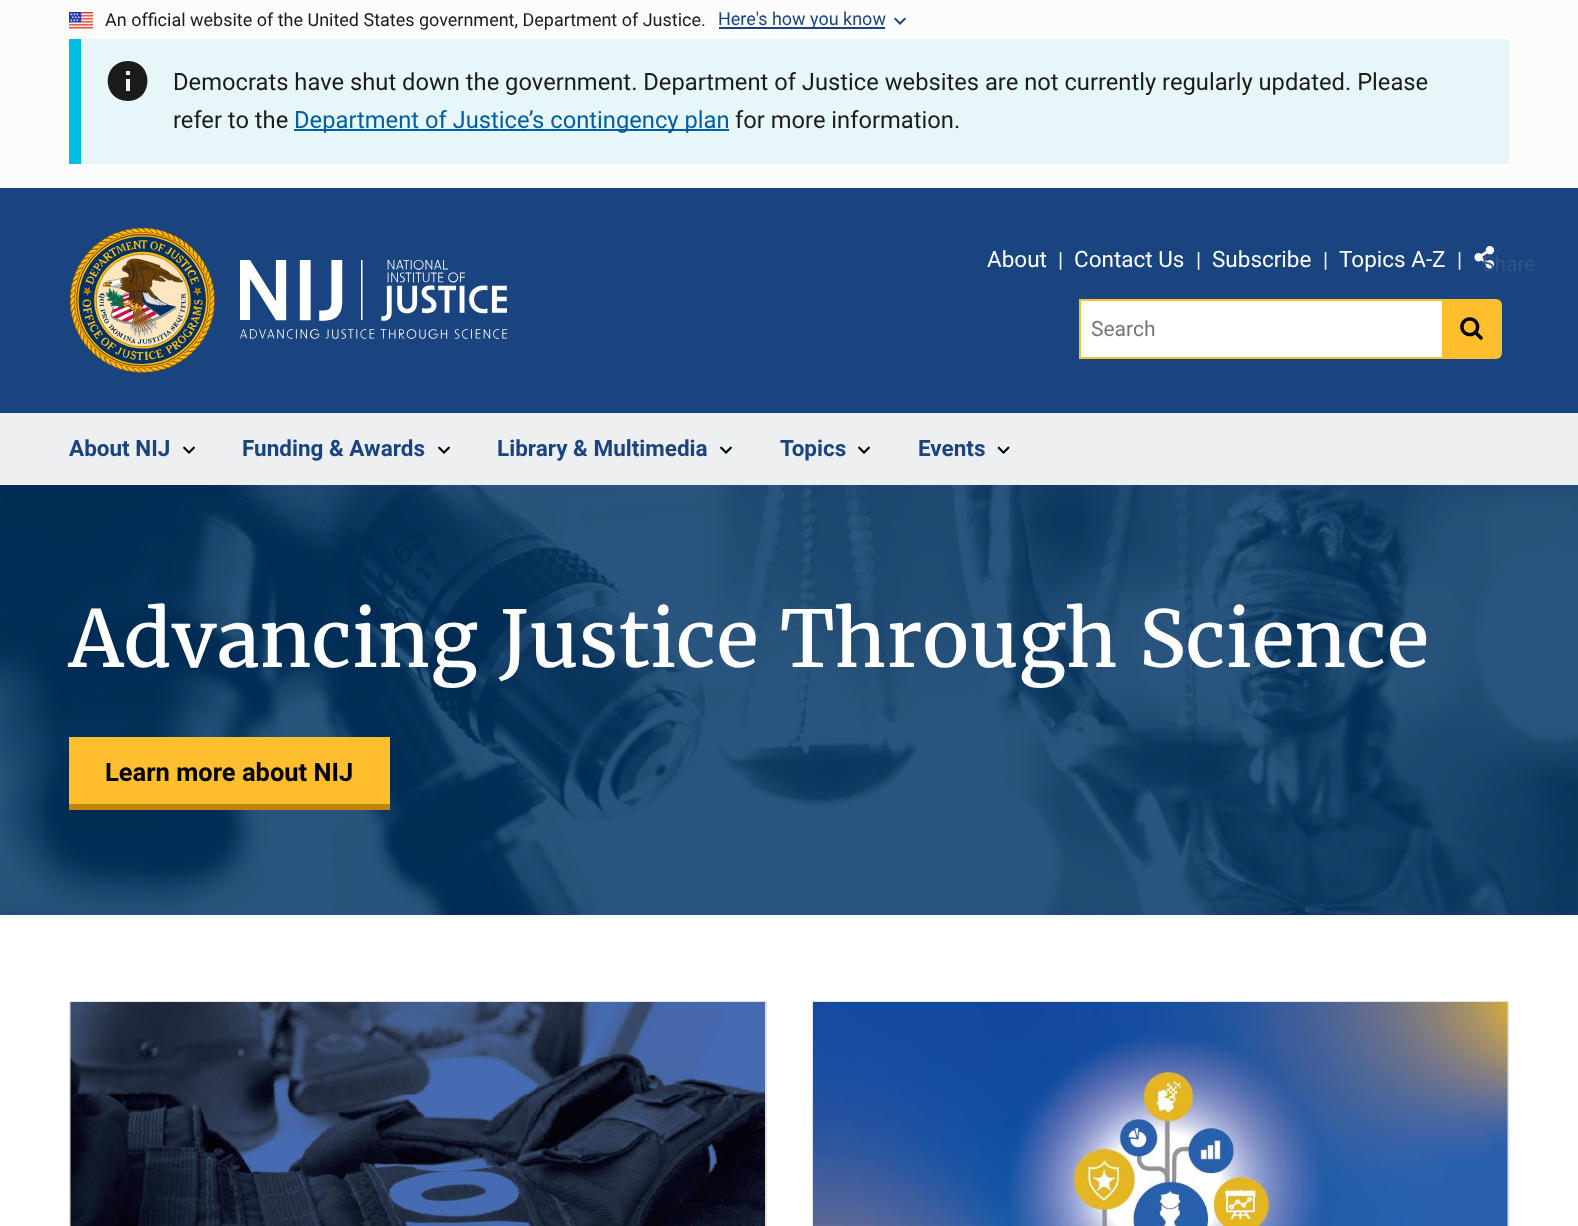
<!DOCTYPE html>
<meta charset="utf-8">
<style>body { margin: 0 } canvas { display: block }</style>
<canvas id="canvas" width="1578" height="1226"></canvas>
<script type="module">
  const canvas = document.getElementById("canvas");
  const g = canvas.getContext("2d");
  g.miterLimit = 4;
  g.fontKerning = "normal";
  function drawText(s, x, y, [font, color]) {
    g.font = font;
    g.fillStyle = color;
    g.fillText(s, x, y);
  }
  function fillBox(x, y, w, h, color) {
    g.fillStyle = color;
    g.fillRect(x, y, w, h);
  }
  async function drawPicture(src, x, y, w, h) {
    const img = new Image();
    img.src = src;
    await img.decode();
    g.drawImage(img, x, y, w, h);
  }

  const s1 = ["18px Roboto", "#1B1B1B"];
  const s2 = ["18px Roboto", "#1A4480"];
  const s3 = ["23.75px Roboto", "#1B1B1B"];
  const s4 = ["23.75px Roboto", "#005EA2"];
  const s5 = ["22.5px Roboto", "#FFFFFF"];
  const s6 = ["21px Roboto", "#EDEFF0"];
  const s7 = ["21px Roboto", "#2F558B"];
  const s8 = ["21px Roboto", "#757575"];
  const s9 = ["bold 22.5px Roboto", "#1A4480"];
  const s10 = ["78px Merriweather", "#FFFFFF"];
  const s11 = ["bold 25.5px Roboto", "#000000"];

  fillBox(0, 0, 1578, 1226, "#FFFFFF");
  fillBox(0, 0, 1578, 188, "#FCFCFC");
  await drawPicture("pic1.png", 69, 12, 24, 17);
  drawText("An official website of the United States government, Department of Justice.", 105, 26, s1);
  fillBox(719, 27, 166, 2, "#1A4480");
  drawText("Here's how you know", 718, 25, s2);
  await drawPicture("pic2.png", 894, 17, 12, 8);
  fillBox(81, 39, 1428, 125, "#E7F6F8");
  fillBox(69, 39, 12, 125, "#00BDE3");
  g.fillStyle = "#1B1B1B";
  g.beginPath();
  g.moveTo(128, 61);
  g.bezierCurveTo(101, 61, 101, 101, 128, 101);
  g.bezierCurveTo(154, 101, 154, 61, 128, 61);
  g.closePath();
  g.moveTo(130, 91);
  g.lineTo(126, 91);
  g.lineTo(126, 79);
  g.lineTo(130, 79);
  g.closePath();
  g.moveTo(130, 75);
  g.lineTo(126, 75);
  g.lineTo(126, 71);
  g.lineTo(130, 71);
  g.closePath();
  g.fill();
  drawText("Democrats have shut down the government. Department of Justice websites are not currently regularly updated. Please", 173, 90, s3);
  drawText("refer to the", 173, 128, s3);
  fillBox(294, 129, 435, 2, "#005EA2");
  drawText("Department of Justice’s contingency plan", 294, 128, s4);
  drawText("for more information.", 735, 128, s3);
  fillBox(0, 188, 1578, 225, "#1A4480");
  await drawPicture("pic3.png", 69, 227, 147, 146);
  await drawPicture("pic4.png", 240, 260, 267, 79);
  fillBox(0, 413, 1578, 72, "#EDEFF0");
  drawText("About", 987, 267, s5);
  drawText("|", 1058, 267, s6);
  drawText("Contact Us", 1074, 267, s5);
  drawText("|", 1196, 267, s6);
  drawText("Subscribe", 1212, 267, s5);
  drawText("|", 1323, 267, s6);
  drawText("Topics A-Z", 1339, 267, s5);
  drawText("|", 1457, 267, s6);
  await drawPicture("pic5.png", 1474, 246, 21, 23);
  drawText("Share", 1482, 271, s7);
  fillBox(1081, 301, 361, 56, "#FFFFFF");
  fillBox(1079, 299, 363, 2, "#FFBE2E");
  fillBox(1079, 357, 363, 2, "#FFBE2E");
  fillBox(1079, 299, 2, 60, "#FFBE2E");
  drawText("Search", 1091, 336, s8);
  g.fillStyle = "#FFBE2E";
  g.beginPath();
  g.roundRect(1442, 299, 60, 60, [0, 6, 6, 0]);
  g.fill();
  await drawPicture("pic6.png", 1460, 317, 23, 23);
  await drawPicture("pic7.png", 183, 446, 12, 8);
  drawText("About NIJ", 69, 456, s9);
  await drawPicture("pic8.png", 183, 446, 12, 8);
  await drawPicture("pic7.png", 438, 446, 12, 8);
  drawText("Funding & Awards", 242, 456, s9);
  await drawPicture("pic8.png", 438, 446, 12, 8);
  await drawPicture("pic7.png", 720, 446, 12, 8);
  drawText("Library & Multimedia", 497, 456, s9);
  await drawPicture("pic8.png", 720, 446, 12, 8);
  await drawPicture("pic7.png", 858, 446, 12, 8);
  drawText("Topics", 780, 456, s9);
  await drawPicture("pic8.png", 858, 446, 12, 8);
  await drawPicture("pic9.png", 998, 446, 12, 8);
  drawText("Events", 918, 456, s9);
  await drawPicture("pic10.png", 997, 446, 13, 8);
  await drawPicture("pic11.png", 0, 485, 1578, 430);
  drawText("Advancing Justice Through Science", 69, 667, s10);
  fillBox(69, 737, 321, 67, "#FFBE2E");
  drawText("Learn more about NIJ", 105, 781, s11);
  fillBox(69, 804, 321, 6, "#C2850C");
  g.strokeStyle = "#DFE1E2";
  g.lineWidth = 2;
  g.strokeRect(70, 1002, 696, 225);
  await drawPicture("pic12.png", 70, 1002, 695, 224);
  g.strokeRect(813, 1002, 695, 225);
  await drawPicture("pic13.png", 813, 1002, 695, 224);
</script>
